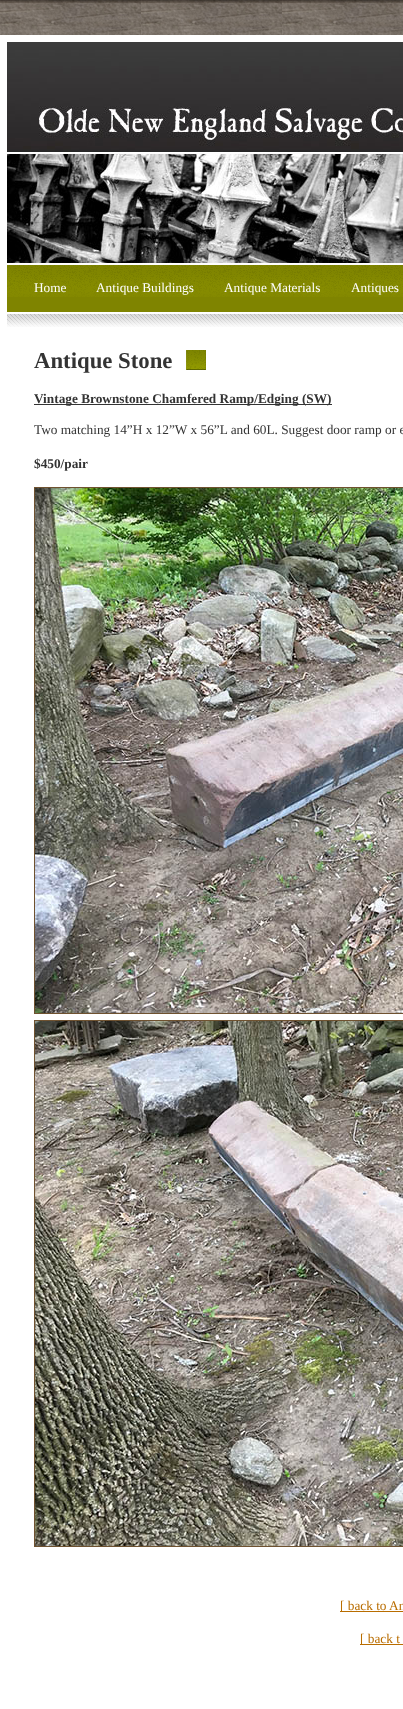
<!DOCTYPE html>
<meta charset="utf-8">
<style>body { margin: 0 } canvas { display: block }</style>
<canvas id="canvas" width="403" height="1709"></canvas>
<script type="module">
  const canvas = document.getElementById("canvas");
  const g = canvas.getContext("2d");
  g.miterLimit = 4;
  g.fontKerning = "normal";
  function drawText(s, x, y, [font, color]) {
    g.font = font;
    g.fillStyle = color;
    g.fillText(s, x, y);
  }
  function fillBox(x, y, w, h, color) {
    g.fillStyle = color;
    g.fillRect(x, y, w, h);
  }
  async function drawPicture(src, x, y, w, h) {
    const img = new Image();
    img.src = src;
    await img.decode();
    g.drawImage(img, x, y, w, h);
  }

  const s1 = ["13.3px Liberation Serif", "#FFFFFF"];
  const s2 = ["bold 22.75px Liberation Serif", "#333333"];
  const s3 = ["bold 13.3px Liberation Serif", "#333333"];
  const s4 = ["13.3px Liberation Serif", "#333333"];
  const s5 = ["13.3px Liberation Serif", "#B96D00"];

  fillBox(0, 0, 403, 1709, "#FFFFFF");
  await drawPicture("pic1.png", 0, 0, 403, 35);
  await drawPicture("pic2.png", 7, 42, 396, 221);
  fillBox(7, 297, 396, 15, "#7F8400");
  await drawPicture("pic3.png", 7, 265, 396, 32);
  drawText("Home", 34, 292, s1);
  drawText("Antique Buildings", 96, 292, s1);
  drawText("Antique Materials", 224, 292, s1);
  drawText("Antiques", 351, 292, s1);
  await drawPicture("pic4.png", 7, 314, 396, 13);
  drawText("Antique Stone", 34, 368, s2);
  await drawPicture("pic5.png", 186, 350, 20, 20);
  fillBox(34, 404, 298, 1, "#333333");
  drawText("Vintage Brownstone Chamfered Ramp/Edging (SW)", 34, 403, s3);
  drawText("Two matching 14”H x 12”W x 56”L and 60L. Suggest door ramp or e", 34, 434, s4);
  drawText("$450/pair", 34, 468, s3);
  g.strokeStyle = "#6F5230";
  g.strokeRect(34.5, 487.5, 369, 526);
  await drawPicture("pic6.png", 35, 488, 368, 525);
  g.strokeRect(34.5, 1020.5, 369, 526);
  await drawPicture("pic7.png", 35, 1021, 368, 525);
  fillBox(340, 1611, 63, 1, "#B96D00");
  drawText("[ back to An", 340, 1610, s5);
  fillBox(360, 1644, 43, 1, "#B96D00");
  drawText("[ back t", 360, 1643, s5);
</script>
